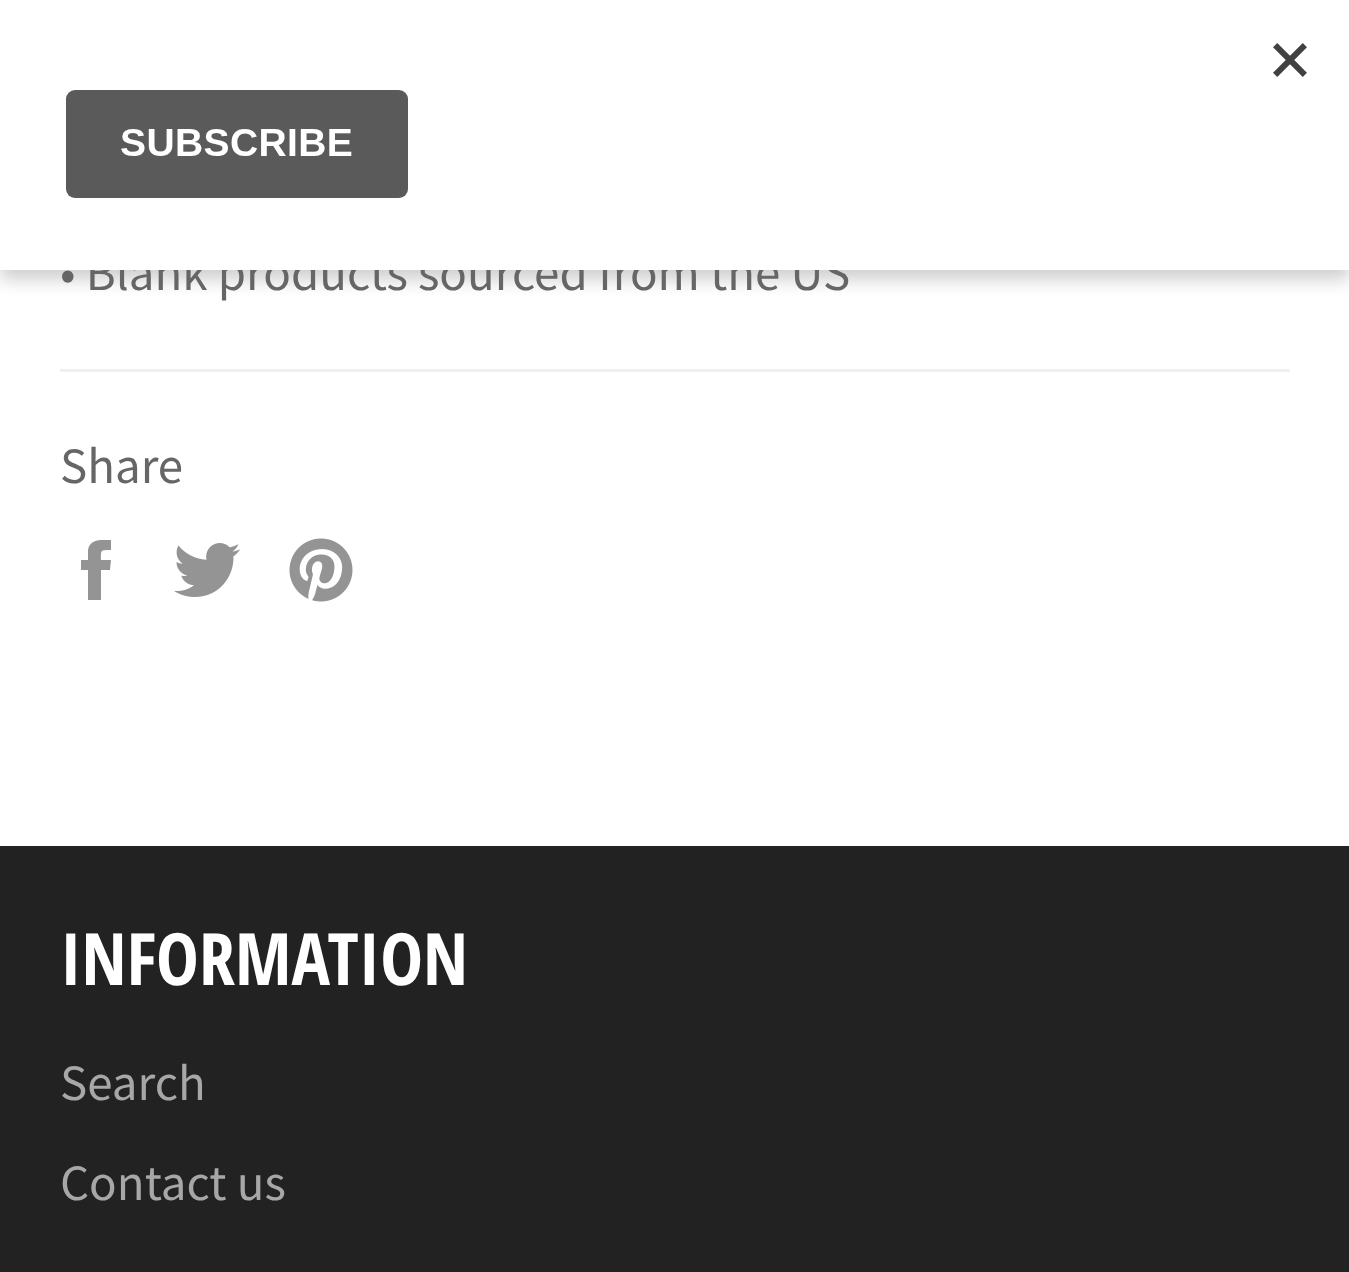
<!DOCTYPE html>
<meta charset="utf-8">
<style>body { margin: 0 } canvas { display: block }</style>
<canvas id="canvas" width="1349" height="1272"></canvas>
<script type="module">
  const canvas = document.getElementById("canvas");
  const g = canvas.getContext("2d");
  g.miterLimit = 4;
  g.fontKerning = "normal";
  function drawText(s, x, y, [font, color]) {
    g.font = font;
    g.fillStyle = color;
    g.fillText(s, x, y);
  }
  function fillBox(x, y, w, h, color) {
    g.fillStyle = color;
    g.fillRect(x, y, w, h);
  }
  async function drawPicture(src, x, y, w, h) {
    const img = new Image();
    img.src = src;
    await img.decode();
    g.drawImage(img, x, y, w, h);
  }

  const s1 = ["51px Source Sans Pro", "#666666"];
  const s2 = ["bold 72px Open Sans Condensed", "#FFFFFF"];
  const s3 = ["51px Source Sans Pro", "#A7A7A7"];

  fillBox(0, 0, 1349, 1272, "#FFFFFF");
  g.fillStyle = "rgba(0, 0, 0, 0.2)";
  g.filter = "blur(9px)";
  g.beginPath();
  g.rect(0, 9, 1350, 270);
  g.fill();
  g.filter = "none";
  drawText("• Blank products sourced from the US", 60, 290, s1);
  fillBox(0, 0, 1349, 270, "#FFFFFF");
  await drawPicture("pic1.png", 66, 43, 1241, 155);
  fillBox(60, 369, 1230, 3, "#F0F0F0");
  drawText("Share", 60, 483, s1);
  g.fillStyle = "#949494";
  g.beginPath();
  g.moveTo(101, 560);
  g.bezierCurveTo(101, 550, 100, 550, 111, 550);
  g.lineTo(111, 540);
  g.bezierCurveTo(102, 540, 90, 538, 88, 550);
  g.lineTo(88, 560);
  g.lineTo(81, 560);
  g.lineTo(81, 570);
  g.lineTo(88, 570);
  g.lineTo(88, 600);
  g.lineTo(101, 600);
  g.lineTo(101, 570);
  g.lineTo(110, 570);
  g.lineTo(111, 560);
  g.closePath();
  g.fill();
  await drawPicture("pic2.png", 174, 543, 66, 54);
  await drawPicture("pic3.png", 289, 538, 64, 64);
  fillBox(0, 846, 1349, 426, "#222222");
  drawText("INFORMATION", 60, 985, s2);
  drawText("Search", 60, 1100, s3);
  drawText("Contact us", 60, 1200, s3);
</script>
